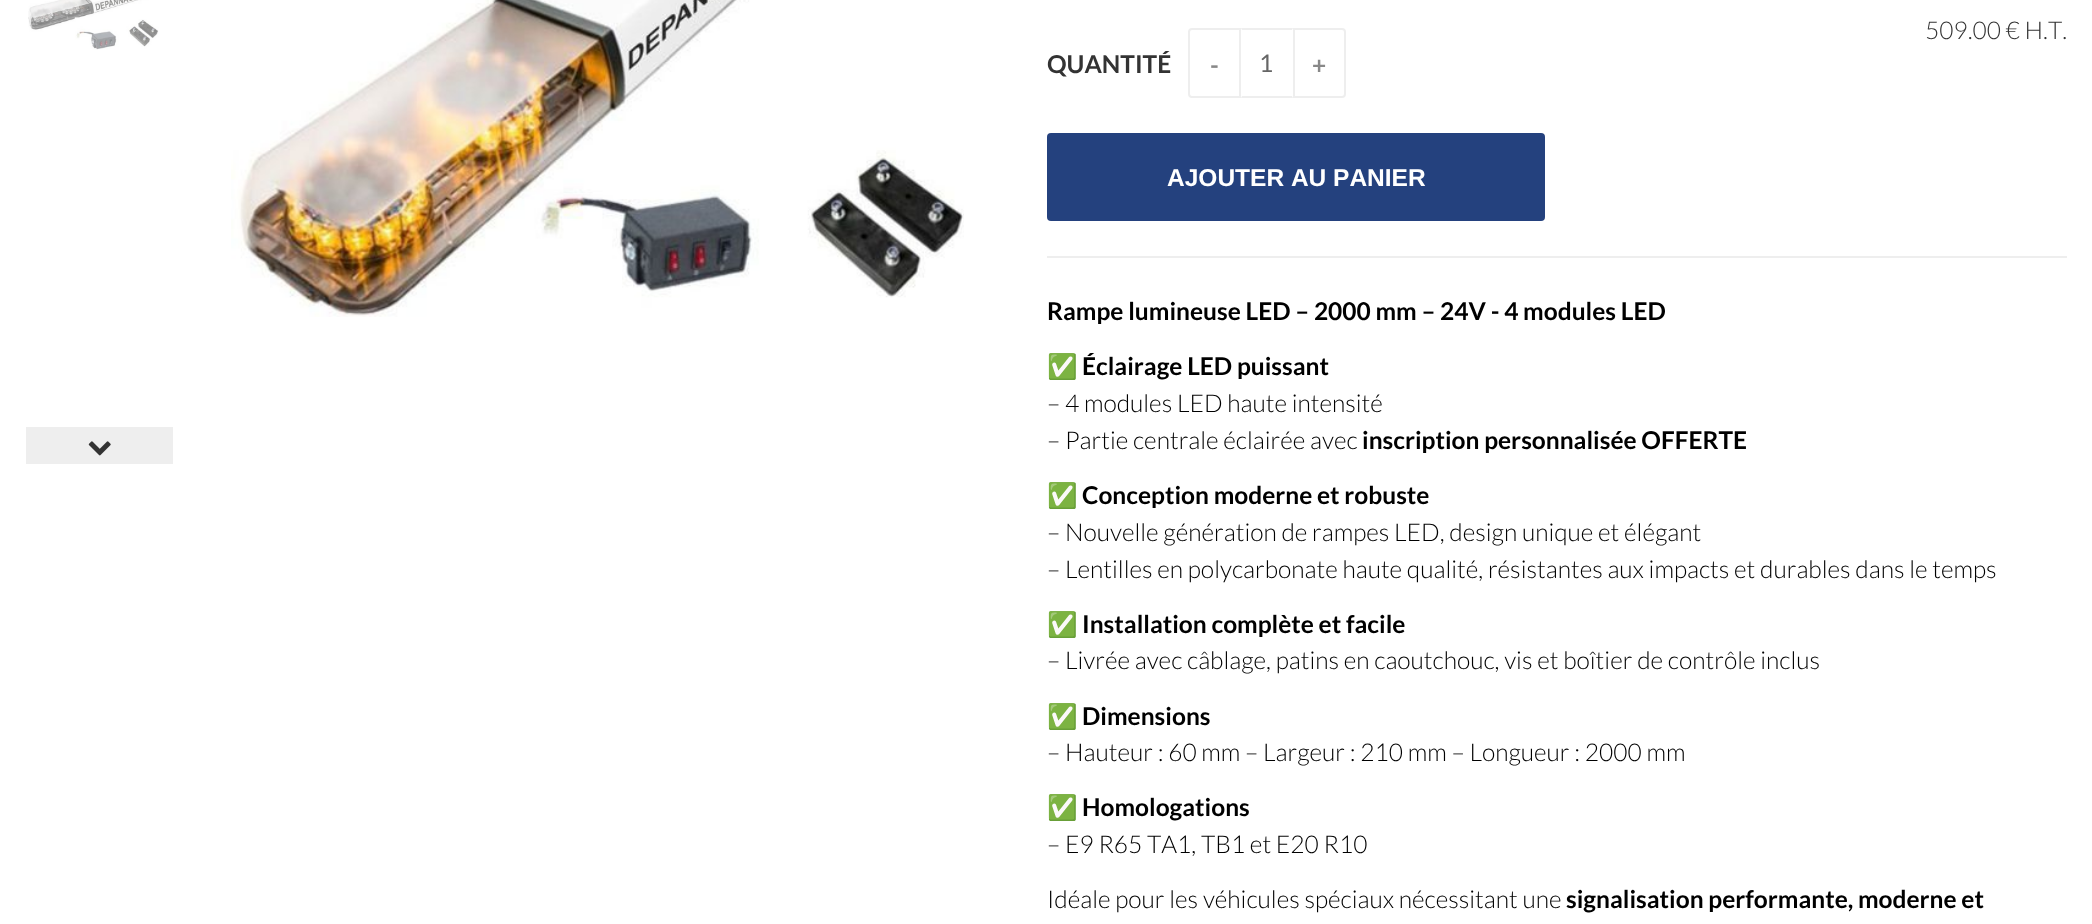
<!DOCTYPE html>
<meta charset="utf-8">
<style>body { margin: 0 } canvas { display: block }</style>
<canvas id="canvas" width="2092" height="924"></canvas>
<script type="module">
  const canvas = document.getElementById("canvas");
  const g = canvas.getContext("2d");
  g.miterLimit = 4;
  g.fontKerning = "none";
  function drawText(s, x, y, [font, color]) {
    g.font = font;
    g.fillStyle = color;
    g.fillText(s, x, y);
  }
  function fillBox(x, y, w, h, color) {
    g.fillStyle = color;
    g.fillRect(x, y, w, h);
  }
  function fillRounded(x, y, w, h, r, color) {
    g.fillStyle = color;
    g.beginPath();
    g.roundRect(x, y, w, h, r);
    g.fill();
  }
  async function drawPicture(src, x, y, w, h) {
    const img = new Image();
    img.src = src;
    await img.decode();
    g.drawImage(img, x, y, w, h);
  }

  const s1 = ["300 24.5px Lato", "#333333"];
  const s2 = ["bold 24.5px Lato", "#333333"];
  const s3 = ["bold 24.5px Lato", "#888888"];
  const s4 = ["24.5px Lato", "#666666"];
  const s5 = ["bold 24.5px Liberation Sans", "#FFFFFF"];
  const s6 = ["bold 24.5px Lato", "#000000"];
  const s7 = ["24.5px Noto Color Emoji", "#000000"];
  const s8 = ["300 24.5px Lato", "#000000"];

  fillBox(0, 0, 2092, 924, "#FFFFFF");
  await drawPicture("pic1.png", 28, 0, 131, 50);
  fillBox(26, 427, 147, 37, "#EEEEEE");
  await drawPicture("pic2.png", 88, 441, 23, 15);
  await drawPicture("pic3.png", 231, 0, 733, 317);
  fillBox(1047, 256, 1020, 2, "#EEEEEE");
  drawText("509.00 € H.T.", 1925, 39, s1);
  drawText("QUANTITÉ", 1047, 73, s2);
  g.beginPath();
  g.roundRect(1189, 29, 51, 68, [3, 0, 0, 3]);
  g.strokeStyle = "#EEEEEE";
  g.lineWidth = 2;
  g.stroke();
  drawText("-", 1210, 74, s3);
  g.fillStyle = "#EEEEEE";
  g.beginPath();
  g.moveTo(1241, 28);
  g.lineTo(1293, 28);
  g.lineTo(1292, 30);
  g.lineTo(1242, 30);
  g.closePath();
  g.fill();
  g.beginPath();
  g.moveTo(1293, 98);
  g.lineTo(1241, 98);
  g.lineTo(1242, 96);
  g.lineTo(1292, 96);
  g.closePath();
  g.fill();
  drawText("1", 1259, 72, s4);
  g.beginPath();
  g.roundRect(1294, 29, 51, 68, [0, 3, 3, 0]);
  g.stroke();
  drawText("+", 1312, 74, s3);
  fillRounded(1047, 133, 498, 88, 4, "#24417E");
  drawText("AJOUTER AU PANIER", 1167, 186, s5);
  drawText("Rampe lumineuse LED – 2000 mm – 24V - 4 modules LED", 1047, 320, s6);
  drawText("✅", 1047, 375, s7);
  drawText("Éclairage LED puissant", 1082, 375, s6);
  drawText("– 4 modules LED haute intensité", 1047, 412, s8);
  drawText("– Partie centrale éclairée avec", 1047, 449, s8);
  drawText("inscription personnalisée OFFERTE", 1362, 449, s6);
  drawText("✅", 1047, 504, s7);
  drawText("Conception moderne et robuste", 1082, 504, s6);
  drawText("– Nouvelle génération de rampes LED, design unique et élégant", 1047, 541, s8);
  drawText("– Lentilles en polycarbonate haute qualité, résistantes aux impacts et durables dans le temps", 1047, 578, s8);
  drawText("✅", 1047, 633, s7);
  drawText("Installation complète et facile", 1082, 633, s6);
  drawText("– Livrée avec câblage, patins en caoutchouc, vis et boîtier de contrôle inclus", 1047, 669, s8);
  drawText("✅", 1047, 725, s7);
  drawText("Dimensions", 1082, 725, s6);
  drawText("– Hauteur : 60 mm – Largeur : 210 mm – Longueur : 2000 mm", 1047, 761, s8);
  drawText("✅", 1047, 816, s7);
  drawText("Homologations", 1082, 816, s6);
  drawText("– E9 R65 TA1, TB1 et E20 R10", 1047, 853, s8);
  drawText("Idéale pour les véhicules spéciaux nécessitant une", 1047, 908, s8);
  drawText("signalisation performante, moderne et", 1566, 908, s6);
</script>
